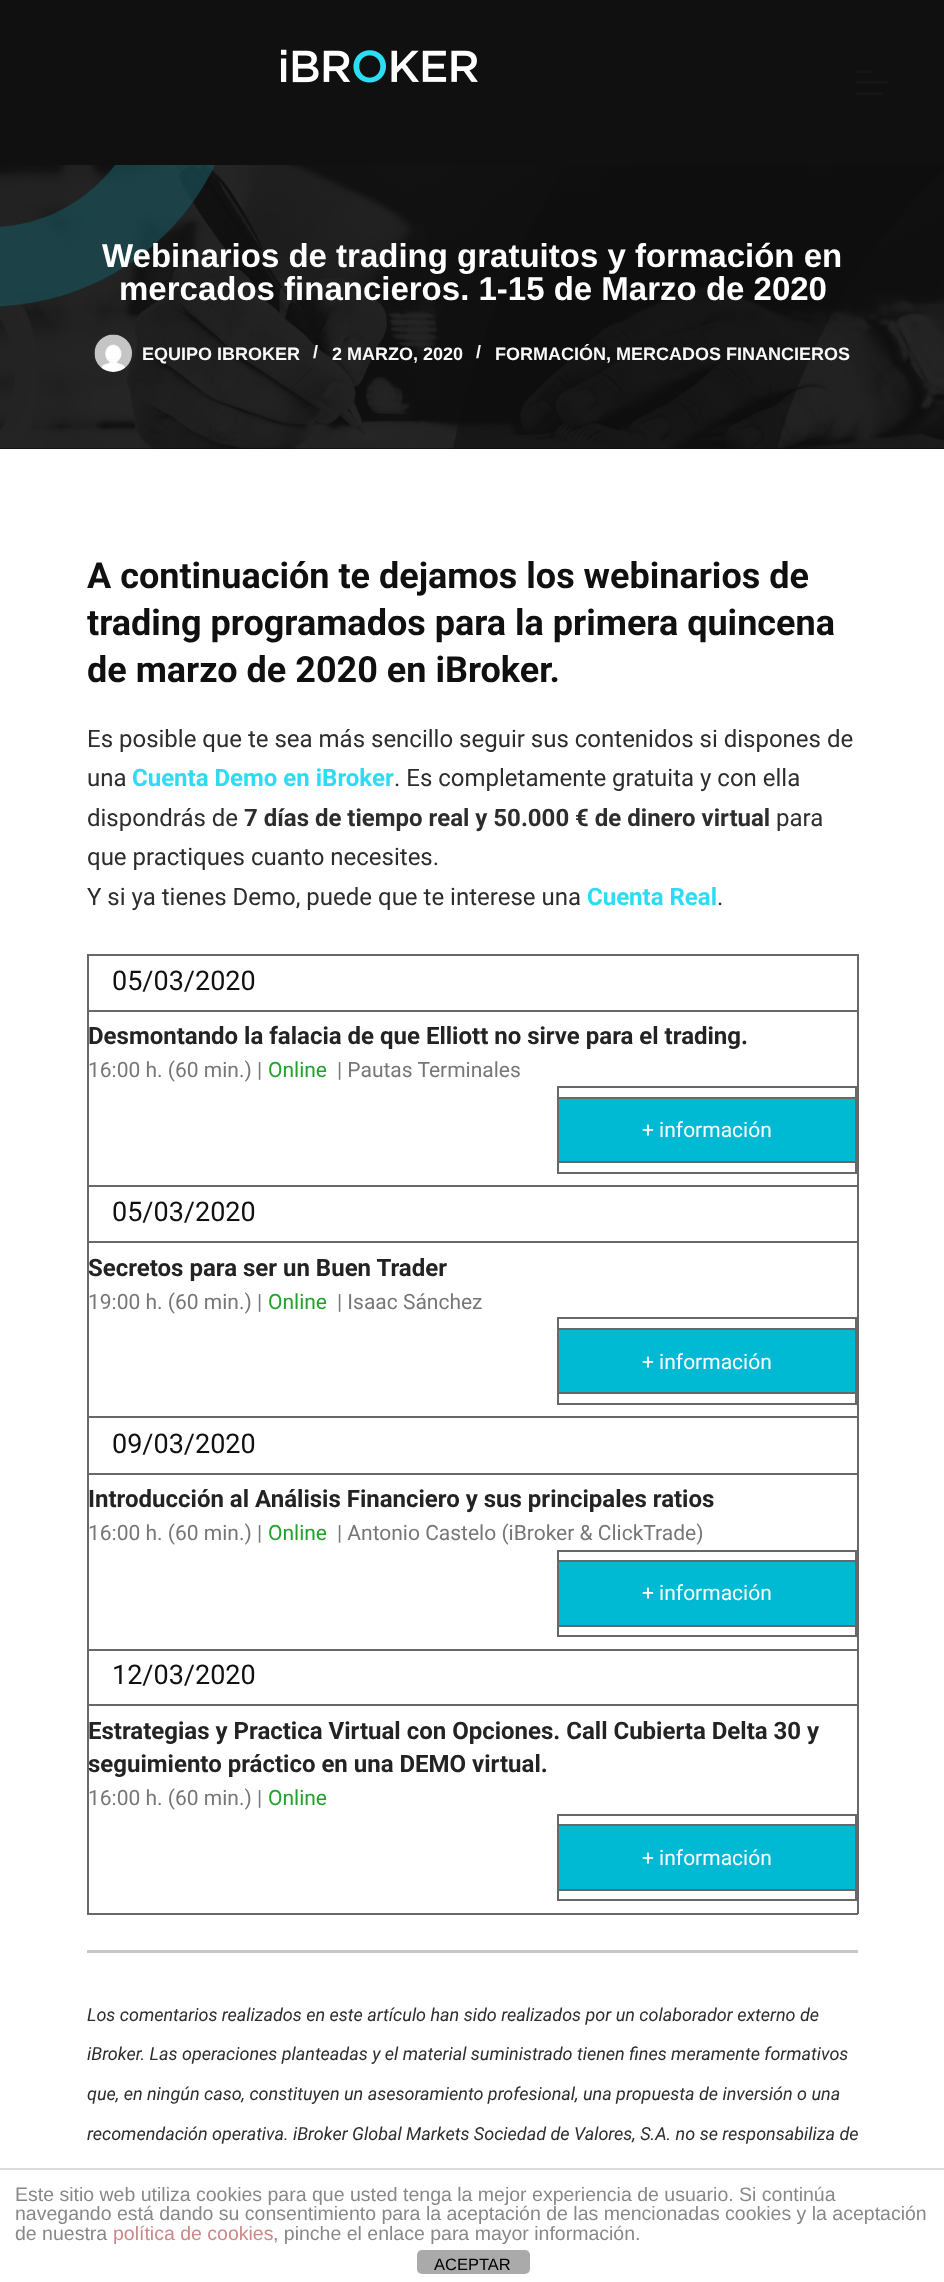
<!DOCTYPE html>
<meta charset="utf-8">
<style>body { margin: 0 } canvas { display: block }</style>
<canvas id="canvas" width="944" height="2282"></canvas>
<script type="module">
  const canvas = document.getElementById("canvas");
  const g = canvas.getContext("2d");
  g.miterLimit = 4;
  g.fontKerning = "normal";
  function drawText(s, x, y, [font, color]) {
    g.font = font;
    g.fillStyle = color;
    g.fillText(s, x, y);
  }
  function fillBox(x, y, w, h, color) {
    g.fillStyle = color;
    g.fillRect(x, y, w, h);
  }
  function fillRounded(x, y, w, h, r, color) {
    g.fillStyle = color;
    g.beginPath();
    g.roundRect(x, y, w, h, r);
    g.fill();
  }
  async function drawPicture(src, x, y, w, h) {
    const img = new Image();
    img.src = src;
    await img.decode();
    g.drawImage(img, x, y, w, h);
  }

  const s1 = ["bold 33px Liberation Sans", "#FFFFFF"];
  const s2 = ["bold 18px Liberation Sans", "#F9F9F9"];
  const s3 = ["bold 36px Roboto", "#101010"];
  const s4 = ["24px Roboto", "#2D2D2D"];
  const s5 = ["bold 24px Roboto", "#2CDCF4"];
  const s6 = ["bold 24px Roboto", "#2D2D2D"];
  const s7 = ["27px Roboto", "#101010"];
  const s8 = ["bold 24px Roboto", "#232323"];
  const s9 = ["21px Roboto", "#777777"];
  const s10 = ["21px Roboto", "#22A22C"];
  const s11 = ["21px Roboto", "#FFFFFF"];
  const s12 = ["italic 18px Roboto", "#2D2D2D"];
  const s13 = ["19.5px Liberation Sans", "#888888"];
  const s14 = ["19.5px Liberation Sans", "#CC8888"];
  const s15 = ["16.5px Liberation Sans", "#000000"];

  fillBox(0, 0, 944, 2282, "#FFFFFF");
  fillBox(0, 0, 944, 165, "#101010");
  await drawPicture("pic1.png", 281, 49, 197, 34);
  fillRounded(855, 70, 18, 3, 1.5, "#151515");
  fillRounded(855, 81, 33, 3, 1.5, "#151515");
  fillRounded(855, 92, 28, 3, 1.5, "#151515");
  fillBox(0, 448, 944, 1, "#0F0F0F");
  await drawPicture("pic2.png", 0, 165, 944, 284);
  drawText("Webinarios de trading gratuitos y formación en", 102, 267, s1);
  drawText("mercados financieros. 1-15 de Marzo de 2020", 119, 300, s1);
  await drawPicture("pic3.png", 94, 334, 38, 38);
  drawText("EQUIPO IBROKER", 142, 360, s2);
  drawText("/", 313, 358, s2);
  drawText("2 MARZO, 2020", 332, 360, s2);
  drawText("/", 476, 358, s2);
  drawText("FORMACIÓN, MERCADOS FINANCIEROS", 495, 360, s2);
  drawText("A continuación te dejamos los webinarios de", 87, 588, s3);
  drawText("trading programados para la primera quincena", 87, 635, s3);
  drawText("de marzo de 2020 en iBroker.", 87, 682, s3);
  drawText("Es posible que te sea más sencillo seguir sus contenidos si dispones de", 87, 747, s4);
  drawText("una", 87, 786, s4);
  drawText("Cuenta Demo en iBroker", 132, 786, s5);
  drawText(". Es completamente gratuita y con ella", 394, 786, s4);
  drawText("dispondrás de", 87, 826, s4);
  drawText("7 días de tiempo real y 50.000 € de dinero virtual", 244, 826, s6);
  drawText("para", 776, 826, s4);
  drawText("que practiques cuanto necesites.", 87, 865, s4);
  drawText("Y si ya tienes Demo, puede que te interese una", 87, 905, s4);
  drawText("Cuenta Real", 587, 905, s5);
  drawText(".", 717, 905, s4);
  fillBox(87, 954, 771, 2, "#686868");
  fillBox(857, 954, 2, 960, "#686868");
  fillBox(87, 1913, 771, 2, "#686868");
  fillBox(87, 954, 2, 960, "#686868");
  drawText("05/03/2020", 112, 990, s7);
  fillBox(87, 1010, 771, 2, "#686868");
  drawText("Desmontando la falacia de que Elliott no sirve para el trading.", 88, 1044, s8);
  drawText("16:00 h. (60 min.) |", 88, 1077, s9);
  drawText("Online", 268, 1077, s10);
  drawText("| Pautas Terminales", 337, 1077, s9);
  fillBox(557, 1086, 300, 2, "#686868");
  fillBox(855, 1086, 2, 87, "#686868");
  fillBox(557, 1172, 300, 2, "#686868");
  fillBox(557, 1086, 2, 87, "#686868");
  fillBox(559, 1099, 296, 62, "#00B9D2");
  fillBox(557, 1097, 300, 2, "#686868");
  drawText("+ información", 642, 1137, s11);
  fillBox(557, 1161, 300, 2, "#686868");
  fillBox(87, 1185, 771, 2, "#686868");
  drawText("05/03/2020", 112, 1221, s7);
  fillBox(87, 1241, 771, 2, "#686868");
  drawText("Secretos para ser un Buen Trader", 88, 1276, s8);
  drawText("19:00 h. (60 min.) |", 88, 1309, s9);
  drawText("Online", 268, 1309, s10);
  drawText("| Isaac Sánchez", 337, 1309, s9);
  fillBox(557, 1317, 300, 2, "#686868");
  fillBox(855, 1317, 2, 87, "#686868");
  fillBox(557, 1403, 300, 2, "#686868");
  fillBox(557, 1317, 2, 87, "#686868");
  fillBox(559, 1330, 296, 62, "#00B9D2");
  fillBox(557, 1328, 300, 2, "#686868");
  drawText("+ información", 642, 1369, s11);
  fillBox(557, 1392, 300, 2, "#686868");
  fillBox(87, 1416, 771, 2, "#686868");
  drawText("09/03/2020", 112, 1453, s7);
  fillBox(87, 1473, 771, 2, "#686868");
  drawText("Introducción al Análisis Financiero y sus principales ratios", 88, 1507, s8);
  drawText("16:00 h. (60 min.) |", 88, 1540, s9);
  drawText("Online", 268, 1540, s10);
  drawText("| Antonio Castelo (iBroker & ClickTrade)", 337, 1540, s9);
  fillBox(557, 1550, 300, 2, "#686868");
  fillBox(855, 1550, 2, 87, "#686868");
  fillBox(557, 1635, 300, 2, "#686868");
  fillBox(557, 1550, 2, 87, "#686868");
  fillBox(559, 1562, 296, 63, "#00B9D2");
  fillBox(557, 1560, 300, 2, "#686868");
  drawText("+ información", 642, 1600, s11);
  fillBox(557, 1625, 300, 2, "#686868");
  fillBox(87, 1649, 771, 2, "#686868");
  drawText("12/03/2020", 112, 1684, s7);
  fillBox(87, 1704, 771, 2, "#686868");
  drawText("Estrategias y Practica Virtual con Opciones. Call Cubierta Delta 30 y", 88, 1739, s8);
  drawText("seguimiento práctico en una DEMO virtual.", 88, 1772, s8);
  drawText("16:00 h. (60 min.) |", 88, 1805, s9);
  drawText("Online", 268, 1805, s10);
  fillBox(557, 1814, 300, 2, "#686868");
  fillBox(855, 1814, 2, 87, "#686868");
  fillBox(557, 1899, 300, 2, "#686868");
  fillBox(557, 1814, 2, 87, "#686868");
  fillBox(559, 1826, 296, 63, "#00B9D2");
  fillBox(557, 1824, 300, 2, "#686868");
  drawText("+ información", 642, 1865, s11);
  fillBox(557, 1889, 300, 2, "#686868");
  fillBox(87, 1950, 771, 3, "#C8C8C8");
  drawText("Los comentarios realizados en este artículo han sido realizados por un colaborador externo de", 87, 2021, s12);
  drawText("iBroker. Las operaciones planteadas y el material suministrado tienen fines meramente formativos", 87, 2060, s12);
  drawText("que, en ningún caso, constituyen un asesoramiento profesional, una propuesta de inversión o una", 87, 2100, s12);
  drawText("recomendación operativa. iBroker Global Markets Sociedad de Valores, S.A. no se responsabiliza de", 87, 2140, s12);
  fillBox(0, 2168, 944, 2, "#DDDDDD");
  drawText("Este sitio web utiliza cookies para que usted tenga la mejor experiencia de usuario. Si continúa", 15, 2201, s13);
  drawText("navegando está dando su consentimiento para la aceptación de las mencionadas cookies y la aceptación", 15, 2220, s13);
  drawText("de nuestra", 15, 2240, s13);
  drawText("política de cookies", 113, 2240, s14);
  drawText(", pinche el enlace para mayor información.", 273, 2240, s13);
  fillRounded(417, 2250, 113, 24, 5, "#AAAAAA");
  drawText("ACEPTAR", 434, 2270, s15);
</script>
